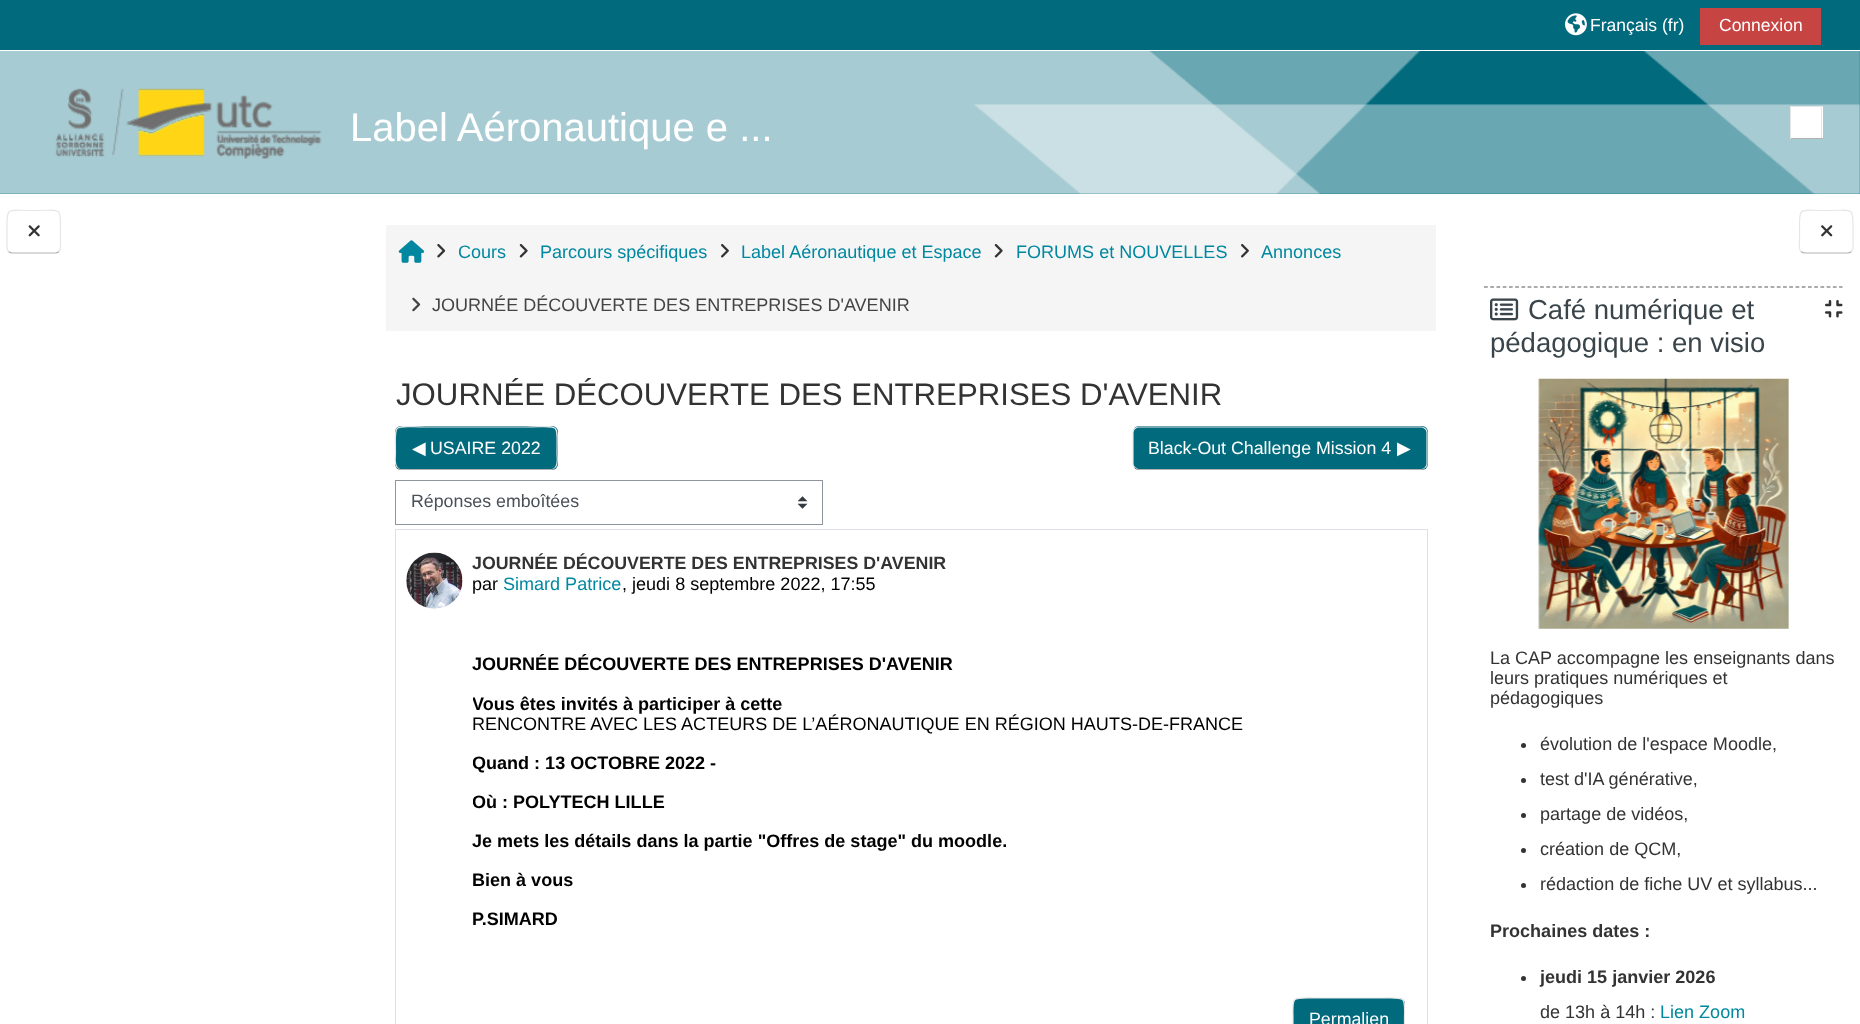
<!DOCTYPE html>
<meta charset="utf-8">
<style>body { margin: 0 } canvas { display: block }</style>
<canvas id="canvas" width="1860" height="1024"></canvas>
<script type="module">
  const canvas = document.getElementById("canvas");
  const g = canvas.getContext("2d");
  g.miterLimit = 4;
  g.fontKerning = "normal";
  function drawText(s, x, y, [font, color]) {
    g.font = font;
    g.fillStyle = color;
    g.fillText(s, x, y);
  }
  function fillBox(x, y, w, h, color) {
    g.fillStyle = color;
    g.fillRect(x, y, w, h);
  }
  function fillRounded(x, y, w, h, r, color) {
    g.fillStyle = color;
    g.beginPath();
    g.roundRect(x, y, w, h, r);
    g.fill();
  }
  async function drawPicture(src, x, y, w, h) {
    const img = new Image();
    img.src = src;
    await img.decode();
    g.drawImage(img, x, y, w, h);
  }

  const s1 = ["17.5px Liberation Sans", "#FFFFFF"];
  const s2 = ["40px Liberation Sans", "#FFFFFF"];
  const s3 = ["18.05px Liberation Sans", "#0188A0"];
  const s4 = ["18.05px Liberation Sans", "#444444"];
  const s5 = ["31.2px Liberation Sans", "#333333"];
  const s6 = ["17.8px DejaVu Sans", "#FFFFFF"];
  const s7 = ["17.8px Liberation Sans", "#FFFFFF"];
  const s8 = ["17.8px Liberation Sans", "#495057"];
  const s9 = ["bold 17.8px Liberation Sans", "#333333"];
  const s10 = ["18.05px Liberation Sans", "#000000"];
  const s11 = ["bold 18.05px Liberation Sans", "#000000"];
  const s12 = ["27.5px Liberation Sans", "#3A454B"];
  const s13 = ["18.05px Liberation Sans", "#333333"];
  const s14 = ["bold 18.05px Liberation Sans", "#333333"];

  fillBox(0, 0, 1860, 1024, "#FFFFFF");
  fillBox(0, 51, 1860, 143, "#016A7D");
  await drawPicture("pic1.png", 0, 51, 1860, 143);
  fillBox(0, 0, 1860, 50, "#016A7D");
  await drawPicture("pic2.png", 1565, 13, 22, 23);
  drawText("Français (fr)", 1590, 31, s1);
  fillBox(1700, 8, 121, 37, "#C64543");
  drawText("Connexion", 1719, 31, s1);
  await drawPicture("pic3.png", 55, 88, 267, 71);
  drawText("Label Aéronautique e ...", 350, 141, s2);
  fillBox(1791, 107, 32, 31, "#FFFFFF");
  fillBox(1790, 106, 33, 1, "#E6E6E6");
  fillBox(1821, 106, 1, 33, "#E6E6E6");
  fillBox(1790, 138, 33, 1, "#B3B3B3");
  fillBox(1790, 106, 1, 33, "#E6E6E6");
  g.beginPath();
  g.moveTo(59, 251.5);
  g.bezierCurveTo(58, 252.5, 56.5, 253, 55, 253);
  g.lineTo(12.5, 253);
  g.bezierCurveTo(11, 253, 9.5, 252.5, 8.5, 251.5);
  g.strokeStyle = "#B3B3B3";
  g.lineWidth = 1.2;
  g.stroke();
  g.beginPath();
  g.moveTo(8.5, 251.5);
  g.bezierCurveTo(6, 249, 7, 245.5, 7, 242.5);
  g.lineTo(7, 232);
  g.bezierCurveTo(7, 205.5, 5, 210.5, 34, 210.5);
  g.bezierCurveTo(62.5, 210.5, 60.5, 205.5, 60.5, 232);
  g.lineTo(60.5, 242.5);
  g.bezierCurveTo(60.5, 245.5, 61.5, 249, 59, 251.5);
  g.strokeStyle = "#E6E6E6";
  g.stroke();
  await drawPicture("pic4.png", 28, 225, 12, 12);
  fillBox(386, 225, 1050, 106, "#F5F5F5");
  await drawPicture("pic5.png", 398, 240, 27, 23);
  await drawPicture("pic6.png", 437, 244, 9, 14);
  drawText("Cours", 458, 258, s3);
  await drawPicture("pic7.png", 519, 244, 9, 14);
  drawText("Parcours spécifiques", 540, 258, s3);
  await drawPicture("pic8.png", 721, 244, 8, 14);
  drawText("Label Aéronautique et Espace", 741, 258, s3);
  await drawPicture("pic7.png", 994, 244, 9, 14);
  drawText("FORUMS et NOUVELLES", 1016, 258, s3);
  await drawPicture("pic8.png", 1241, 244, 8, 14);
  drawText("Annonces", 1261, 258, s3);
  await drawPicture("pic9.png", 412, 297, 9, 15);
  drawText("JOURNÉE DÉCOUVERTE DES ENTREPRISES D'AVENIR", 432, 311, s4);
  drawText("JOURNÉE DÉCOUVERTE DES ENTREPRISES D'AVENIR", 396, 405, s5);
  fillRounded(395, 426, 163, 44, 6, "#016A7D");
  g.beginPath();
  g.moveTo(555, 467.5);
  g.bezierCurveTo(554, 469, 552.5, 469.5, 551, 469.5);
  g.lineTo(401, 469.5);
  g.bezierCurveTo(400, 469.5, 398.5, 469, 397.5, 467.5);
  g.strokeStyle = "#B3B3B3";
  g.stroke();
  g.beginPath();
  g.moveTo(397.5, 467.5);
  g.bezierCurveTo(394, 464.5, 395.5, 457, 395.5, 453.5);
  g.bezierCurveTo(395.5, 421, 391, 427, 426, 427);
  g.lineTo(526, 427);
  g.bezierCurveTo(561.5, 427, 557, 421, 557, 453.5);
  g.bezierCurveTo(557, 457, 558.5, 464.5, 555, 467.5);
  g.strokeStyle = "#E6E6E6";
  g.stroke();
  drawText("◀︎", 412, 454, s6);
  drawText("USAIRE 2022", 430, 454, s7);
  fillRounded(1133, 426, 295, 44, 6, "#016A7D");
  g.beginPath();
  g.moveTo(1425, 467.5);
  g.bezierCurveTo(1424, 469, 1422.5, 469.5, 1421, 469.5);
  g.lineTo(1138, 469.5);
  g.lineTo(1135, 467.5);
  g.strokeStyle = "#B3B3B3";
  g.stroke();
  g.beginPath();
  g.moveTo(1135, 467.5);
  g.bezierCurveTo(1133.5, 466.5, 1133, 465, 1133, 464);
  g.lineTo(1133, 432.5);
  g.bezierCurveTo(1133, 431, 1133.5, 429.5, 1135, 428.5);
  g.bezierCurveTo(1136, 427.5, 1137.5, 427, 1139, 427);
  g.lineTo(1421, 427);
  g.bezierCurveTo(1422.5, 427, 1424, 427.5, 1425, 428.5);
  g.bezierCurveTo(1426.5, 429.5, 1427, 431, 1427, 432.5);
  g.lineTo(1427, 464);
  g.bezierCurveTo(1427, 465, 1426.5, 466.5, 1425, 467.5);
  g.strokeStyle = "#E6E6E6";
  g.stroke();
  drawText("Black-Out Challenge Mission 4", 1148, 454, s7);
  drawText("▶︎", 1397, 454, s6);
  await drawPicture("pic10.png", 798, 496, 10, 13);
  g.strokeStyle = "#8F959E";
  g.lineWidth = 1;
  g.strokeRect(395.5, 480.5, 427, 44);
  drawText("Réponses emboîtées", 411, 507, s8);
  g.strokeStyle = "#DEE2E6";
  g.strokeRect(395.5, 529.5, 1032, 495);
  await drawPicture("pic11.png", 406, 552, 57, 57);
  drawText("JOURNÉE DÉCOUVERTE DES ENTREPRISES D'AVENIR", 472, 569, s9);
  drawText("par", 472, 590, s10);
  drawText("Simard Patrice", 503, 590, s3);
  drawText(", jeudi 8 septembre 2022, 17:55", 622, 590, s10);
  drawText("JOURNÉE DÉCOUVERTE DES ENTREPRISES D'AVENIR", 472, 670, s11);
  g.save();
  g.beginPath();
  g.rect(473, 635, 943, 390);
  g.clip();
  drawText("Vous êtes invités à participer à cette", 472, 710, s11);
  g.restore();
  drawText("RENCONTRE AVEC LES ACTEURS DE L’AÉRONAUTIQUE EN RÉGION HAUTS-DE-FRANCE", 472, 730, s10);
  g.save();
  g.beginPath();
  g.rect(473, 635, 943, 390);
  g.clip();
  drawText("Quand : 13 OCTOBRE 2022", 472, 769, s11);
  g.restore();
  drawText("-", 710, 769, s11);
  g.save();
  g.beginPath();
  g.rect(473, 635, 943, 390);
  g.clip();
  drawText("Où : POLYTECH LILLE", 472, 808, s11);
  g.restore();
  drawText("Je mets les détails dans la partie \"Offres de stage\" du moodle.", 472, 847, s11);
  drawText("Bien à vous", 472, 886, s11);
  drawText("P.SIMARD", 472, 925, s11);
  g.fillStyle = "#016A7D";
  g.beginPath();
  g.moveTo(1299, 998);
  g.lineTo(1399, 998);
  g.bezierCurveTo(1402.5, 998, 1405, 1000.5, 1405, 1004);
  g.lineTo(1405, 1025);
  g.lineTo(1293, 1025);
  g.lineTo(1293, 1004);
  g.bezierCurveTo(1293, 1000.5, 1295.5, 998, 1299, 998);
  g.closePath();
  g.fill();
  g.beginPath();
  g.moveTo(1295, 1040);
  g.bezierCurveTo(1292.5, 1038, 1293, 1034, 1293, 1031);
  g.lineTo(1293, 1020);
  g.bezierCurveTo(1293, 995.5, 1290, 998, 1315.5, 998);
  g.lineTo(1382, 998);
  g.bezierCurveTo(1407.5, 998, 1404.5, 995.5, 1404.5, 1020);
  g.lineTo(1404.5, 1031);
  g.bezierCurveTo(1404.5, 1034, 1405, 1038, 1402.5, 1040);
  g.strokeStyle = "#E6E6E6";
  g.lineWidth = 1.2;
  g.stroke();
  drawText("Permalien", 1309, 1025, s7);
  g.beginPath();
  g.moveTo(1851.5, 251.5);
  g.bezierCurveTo(1850.5, 252.5, 1849, 253, 1847.5, 253);
  g.lineTo(1805, 253);
  g.bezierCurveTo(1803.5, 253, 1802, 252.5, 1801, 251.5);
  g.strokeStyle = "#B3B3B3";
  g.stroke();
  g.beginPath();
  g.moveTo(1801, 251.5);
  g.bezierCurveTo(1798.5, 249, 1799.5, 245.5, 1799.5, 242.5);
  g.lineTo(1799.5, 232);
  g.bezierCurveTo(1799.5, 205.5, 1797.5, 210.5, 1826, 210.5);
  g.bezierCurveTo(1855, 210.5, 1853, 205.5, 1853, 232);
  g.lineTo(1853, 242.5);
  g.bezierCurveTo(1853, 245.5, 1854, 249, 1851.5, 251.5);
  g.strokeStyle = "#E6E6E6";
  g.stroke();
  await drawPicture("pic12.png", 1821, 225, 12, 12);
  g.beginPath();
  g.moveTo(1484, 287);
  g.lineTo(1842.5, 287);
  g.strokeStyle = "#59585D";
  g.setLineDash([3.75, 2.48]);
  g.stroke();
  await drawPicture("pic13.png", 1490, 298, 29, 23);
  drawText("Café numérique et", 1528, 319, s12);
  drawText("pédagogique : en visio", 1490, 352, s12);
  await drawPicture("pic14.png", 1825, 300, 18, 18);
  await drawPicture("pic15.png", 1538, 378, 251, 251);
  drawText("La CAP accompagne les enseignants dans", 1490, 664, s13);
  drawText("leurs pratiques numériques et", 1490, 684, s13);
  drawText("pédagogiques", 1490, 704, s13);
  g.beginPath();
  g.arc(1523.5, 745.5, 2.5, 0, Math.PI * 2);
  g.fill();
  drawText("évolution de l'espace Moodle,", 1540, 750, s13);
  g.beginPath();
  g.arc(1523.5, 780.5, 2.5, 0, Math.PI * 2);
  g.fill();
  drawText("test d'IA générative,", 1540, 785, s13);
  g.beginPath();
  g.arc(1523.5, 815.5, 2.5, 0, Math.PI * 2);
  g.fill();
  drawText("partage de vidéos,", 1540, 820, s13);
  g.beginPath();
  g.arc(1523.5, 850.5, 2.5, 0, Math.PI * 2);
  g.fill();
  drawText("création de QCM,", 1540, 855, s13);
  g.beginPath();
  g.arc(1523.5, 885.5, 2.5, 0, Math.PI * 2);
  g.fill();
  drawText("rédaction de fiche UV et syllabus...", 1540, 890, s13);
  drawText("Prochaines dates :", 1490, 937, s14);
  g.beginPath();
  g.arc(1523.5, 978.5, 2.5, 0, Math.PI * 2);
  g.fill();
  drawText("jeudi 15 janvier 2026", 1540, 983, s14);
  drawText("de 13h à 14h :", 1540, 1018, s13);
  drawText("Lien Zoom", 1660, 1018, s3);
</script>
